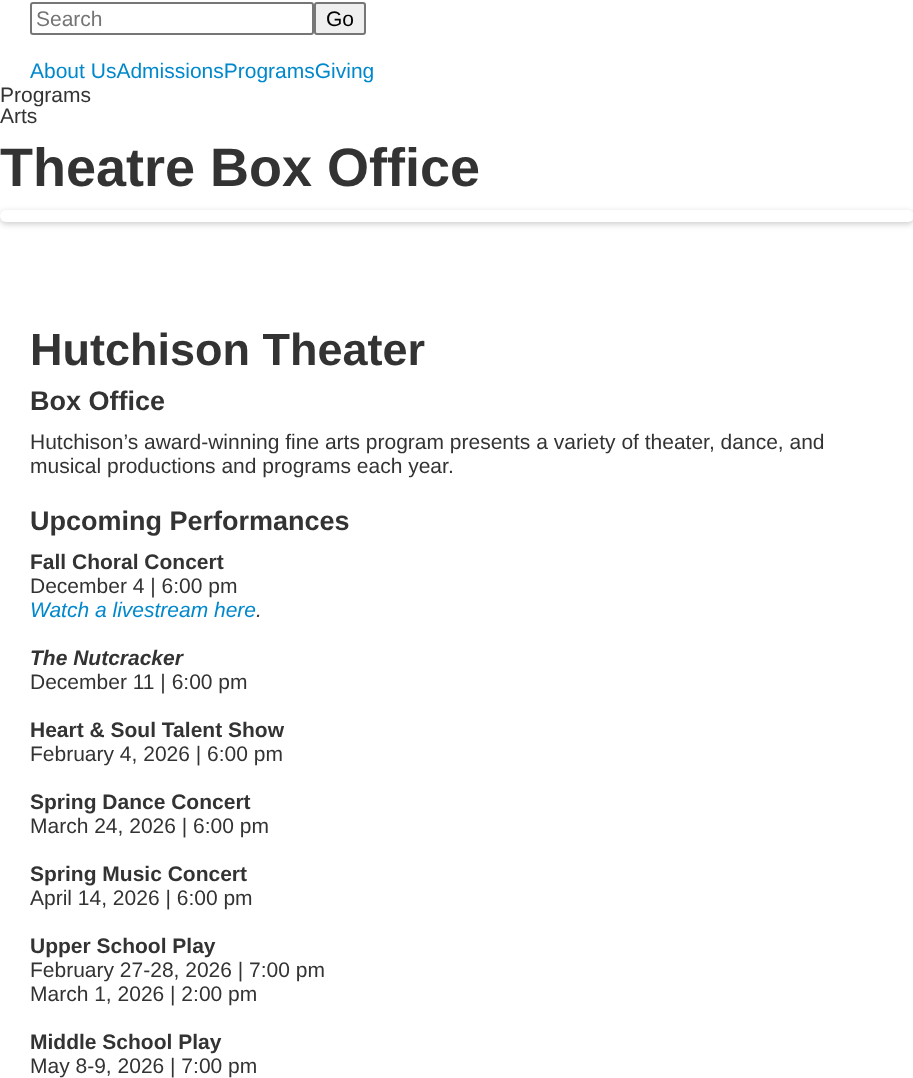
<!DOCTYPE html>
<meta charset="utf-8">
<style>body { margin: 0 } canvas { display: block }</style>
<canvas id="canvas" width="913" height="1078"></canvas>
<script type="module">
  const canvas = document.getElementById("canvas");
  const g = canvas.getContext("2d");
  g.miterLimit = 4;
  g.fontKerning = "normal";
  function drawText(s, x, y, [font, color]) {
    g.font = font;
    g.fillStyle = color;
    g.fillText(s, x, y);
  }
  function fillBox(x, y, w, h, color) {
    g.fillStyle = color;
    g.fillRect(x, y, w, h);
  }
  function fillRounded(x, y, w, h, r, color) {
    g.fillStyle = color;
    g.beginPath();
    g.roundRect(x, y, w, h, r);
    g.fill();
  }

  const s1 = ["21px Liberation Sans", "#757575"];
  const s2 = ["21px Liberation Sans", "#000000"];
  const s3 = ["21px Liberation Sans", "#0088CC"];
  const s4 = ["21px Liberation Sans", "#333333"];
  const s5 = ["bold 54px Liberation Sans", "#333333"];
  const s6 = ["bold 45px Liberation Sans", "#333333"];
  const s7 = ["bold 27px Liberation Sans", "#333333"];
  const s8 = ["bold 21px Liberation Sans", "#333333"];
  const s9 = ["italic 21px Liberation Sans", "#0088CC"];
  const s10 = ["italic 21px Liberation Sans", "#333333"];
  const s11 = ["italic bold 21px Liberation Sans", "#333333"];

  fillBox(0, 0, 913, 1078, "#FFFFFF");
  g.beginPath();
  g.roundRect(31, 3, 282, 31, 2);
  g.strokeStyle = "#767676";
  g.lineWidth = 2;
  g.stroke();
  drawText("Search", 36, 26, s1);
  g.fillStyle = "#EFEFEF";
  g.beginPath();
  g.roundRect(315, 3, 50, 31, 2);
  g.fill();
  g.stroke();
  drawText("Go", 326, 26, s2);
  drawText("About UsAdmissionsProgramsGiving", 30, 78, s3);
  drawText("Programs", 0, 102, s4);
  drawText("Arts", 0, 123, s4);
  drawText("Theatre Box Office", 0, 186, s5);
  g.fillStyle = "rgba(0, 0, 0, 0.2)";
  g.filter = "blur(3px)";
  g.beginPath();
  g.roundRect(0, 212, 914, 12, 6);
  g.fill();
  g.filter = "none";
  fillRounded(0, 210, 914, 12, 6, "#FFFFFF");
  drawText("Hutchison Theater", 30, 365, s6);
  drawText("Box Office", 30, 410, s7);
  drawText("Hutchison’s award-winning fine arts program presents a variety of theater, dance, and", 30, 449, s4);
  drawText("musical productions and programs each year.", 30, 473, s4);
  drawText("Upcoming Performances", 30, 530, s7);
  drawText("Fall Choral Concert", 30, 569, s8);
  drawText("December 4 | 6:00 pm", 30, 593, s4);
  drawText("Watch a livestream here", 30, 617, s9);
  drawText(".", 256, 617, s10);
  drawText("The Nutcracker", 30, 665, s11);
  drawText("December 11 | 6:00 pm", 30, 689, s4);
  drawText("Heart & Soul Talent Show", 30, 737, s8);
  drawText("February 4, 2026 | 6:00 pm", 30, 761, s4);
  drawText("Spring Dance Concert", 30, 809, s8);
  drawText("March 24, 2026 | 6:00 pm", 30, 833, s4);
  drawText("Spring Music Concert", 30, 881, s8);
  drawText("April 14, 2026 | 6:00 pm", 30, 905, s4);
  drawText("Upper School Play", 30, 953, s8);
  drawText("February 27-28, 2026 | 7:00 pm", 30, 977, s4);
  drawText("March 1, 2026 | 2:00 pm", 30, 1001, s4);
  drawText("Middle School Play", 30, 1049, s8);
  drawText("May 8-9, 2026 | 7:00 pm", 30, 1073, s4);
</script>
